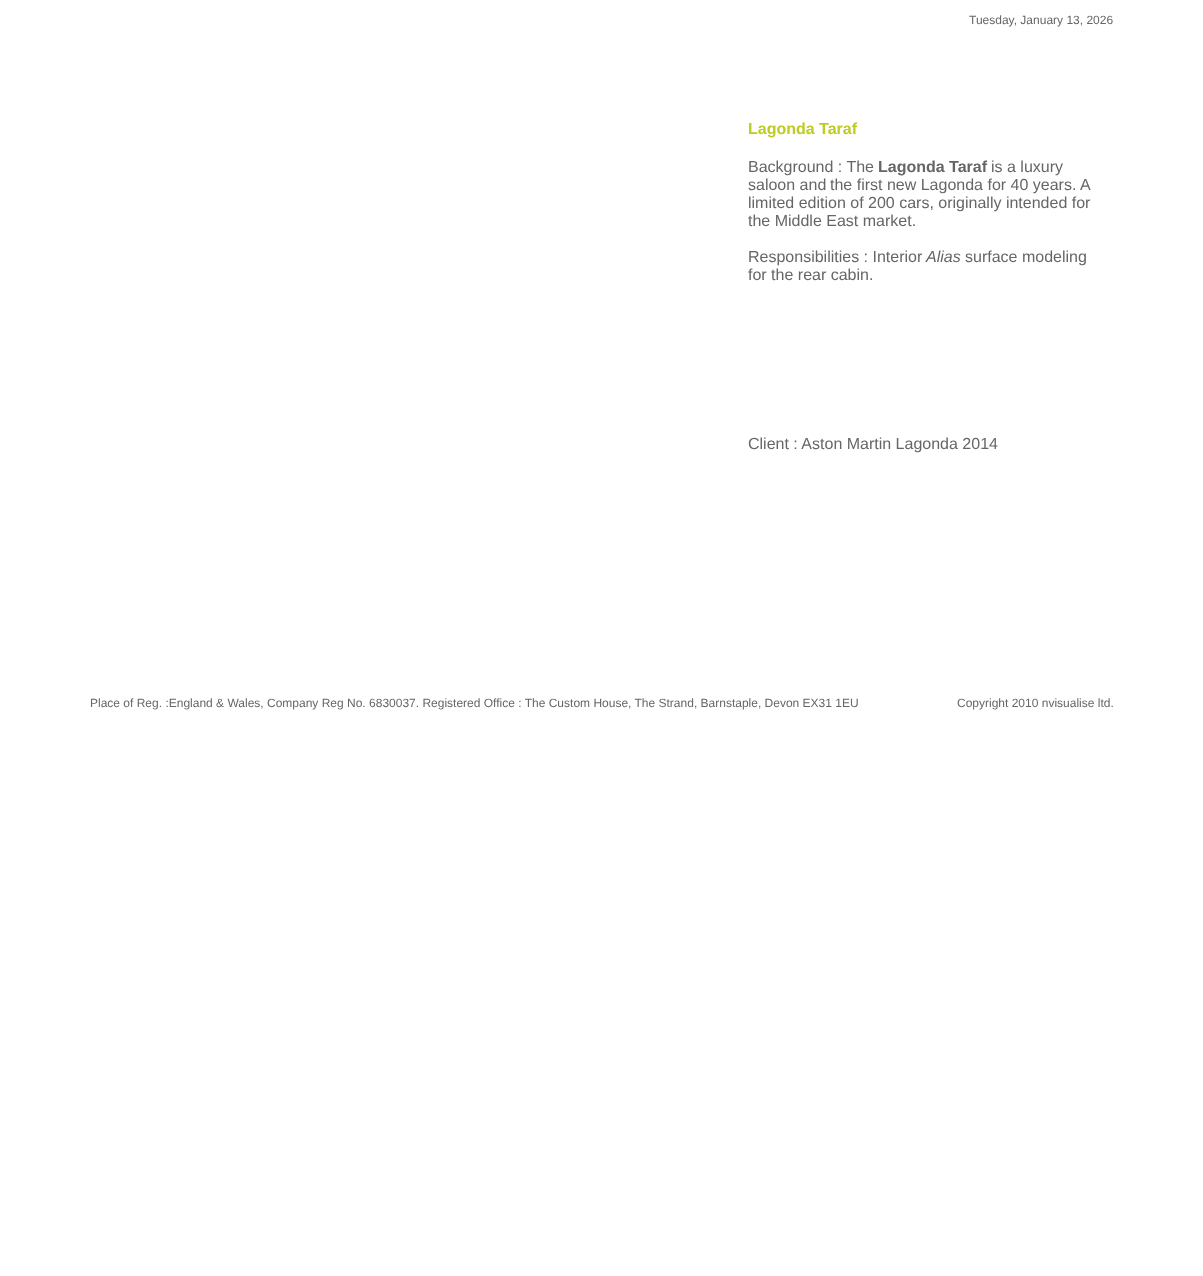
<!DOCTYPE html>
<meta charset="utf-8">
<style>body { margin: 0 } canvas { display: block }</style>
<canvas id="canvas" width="1203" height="1276"></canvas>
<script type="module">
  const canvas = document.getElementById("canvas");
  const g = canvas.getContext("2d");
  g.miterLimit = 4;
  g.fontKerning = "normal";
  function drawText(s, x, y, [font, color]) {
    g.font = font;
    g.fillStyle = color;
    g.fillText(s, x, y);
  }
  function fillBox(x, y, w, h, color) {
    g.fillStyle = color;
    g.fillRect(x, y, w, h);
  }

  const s1 = ["12px Liberation Sans", "#666666"];
  const s2 = ["bold 16px Liberation Sans", "#BECB21"];
  const s3 = ["16px Liberation Sans", "#666666"];
  const s4 = ["bold 16px Liberation Sans", "#666666"];
  const s5 = ["italic 16px Liberation Sans", "#666666"];

  fillBox(0, 0, 1203, 1276, "#FFFFFF");
  drawText("Tuesday, January 13, 2026", 969, 24, s1);
  drawText("Lagonda Taraf", 748, 134, s2);
  drawText("Background : The", 748, 172, s3);
  drawText("Lagonda Taraf", 878, 172, s4);
  drawText("is a luxury", 991, 172, s3);
  drawText("saloon and", 748, 190, s3);
  drawText("the first new Lagonda for 40 years. A", 830, 190, s3);
  drawText("limited edition of 200 cars, originally intended for", 748, 208, s3);
  drawText("the Middle East market.", 748, 226, s3);
  drawText("Responsibilities : Interior", 748, 262, s3);
  drawText("Alias", 926, 262, s5);
  drawText("surface modeling", 965, 262, s3);
  drawText("for the rear cabin.", 748, 280, s3);
  drawText("Client : Aston Martin Lagonda 2014", 748, 449, s3);
  drawText("Place of Reg. :England & Wales, Company Reg No. 6830037. Registered Office : The Custom House, The Strand, Barnstaple, Devon EX31 1EU", 90, 707, s1);
  drawText("Copyright 2010 nvisualise ltd.", 957, 707, s1);
</script>
